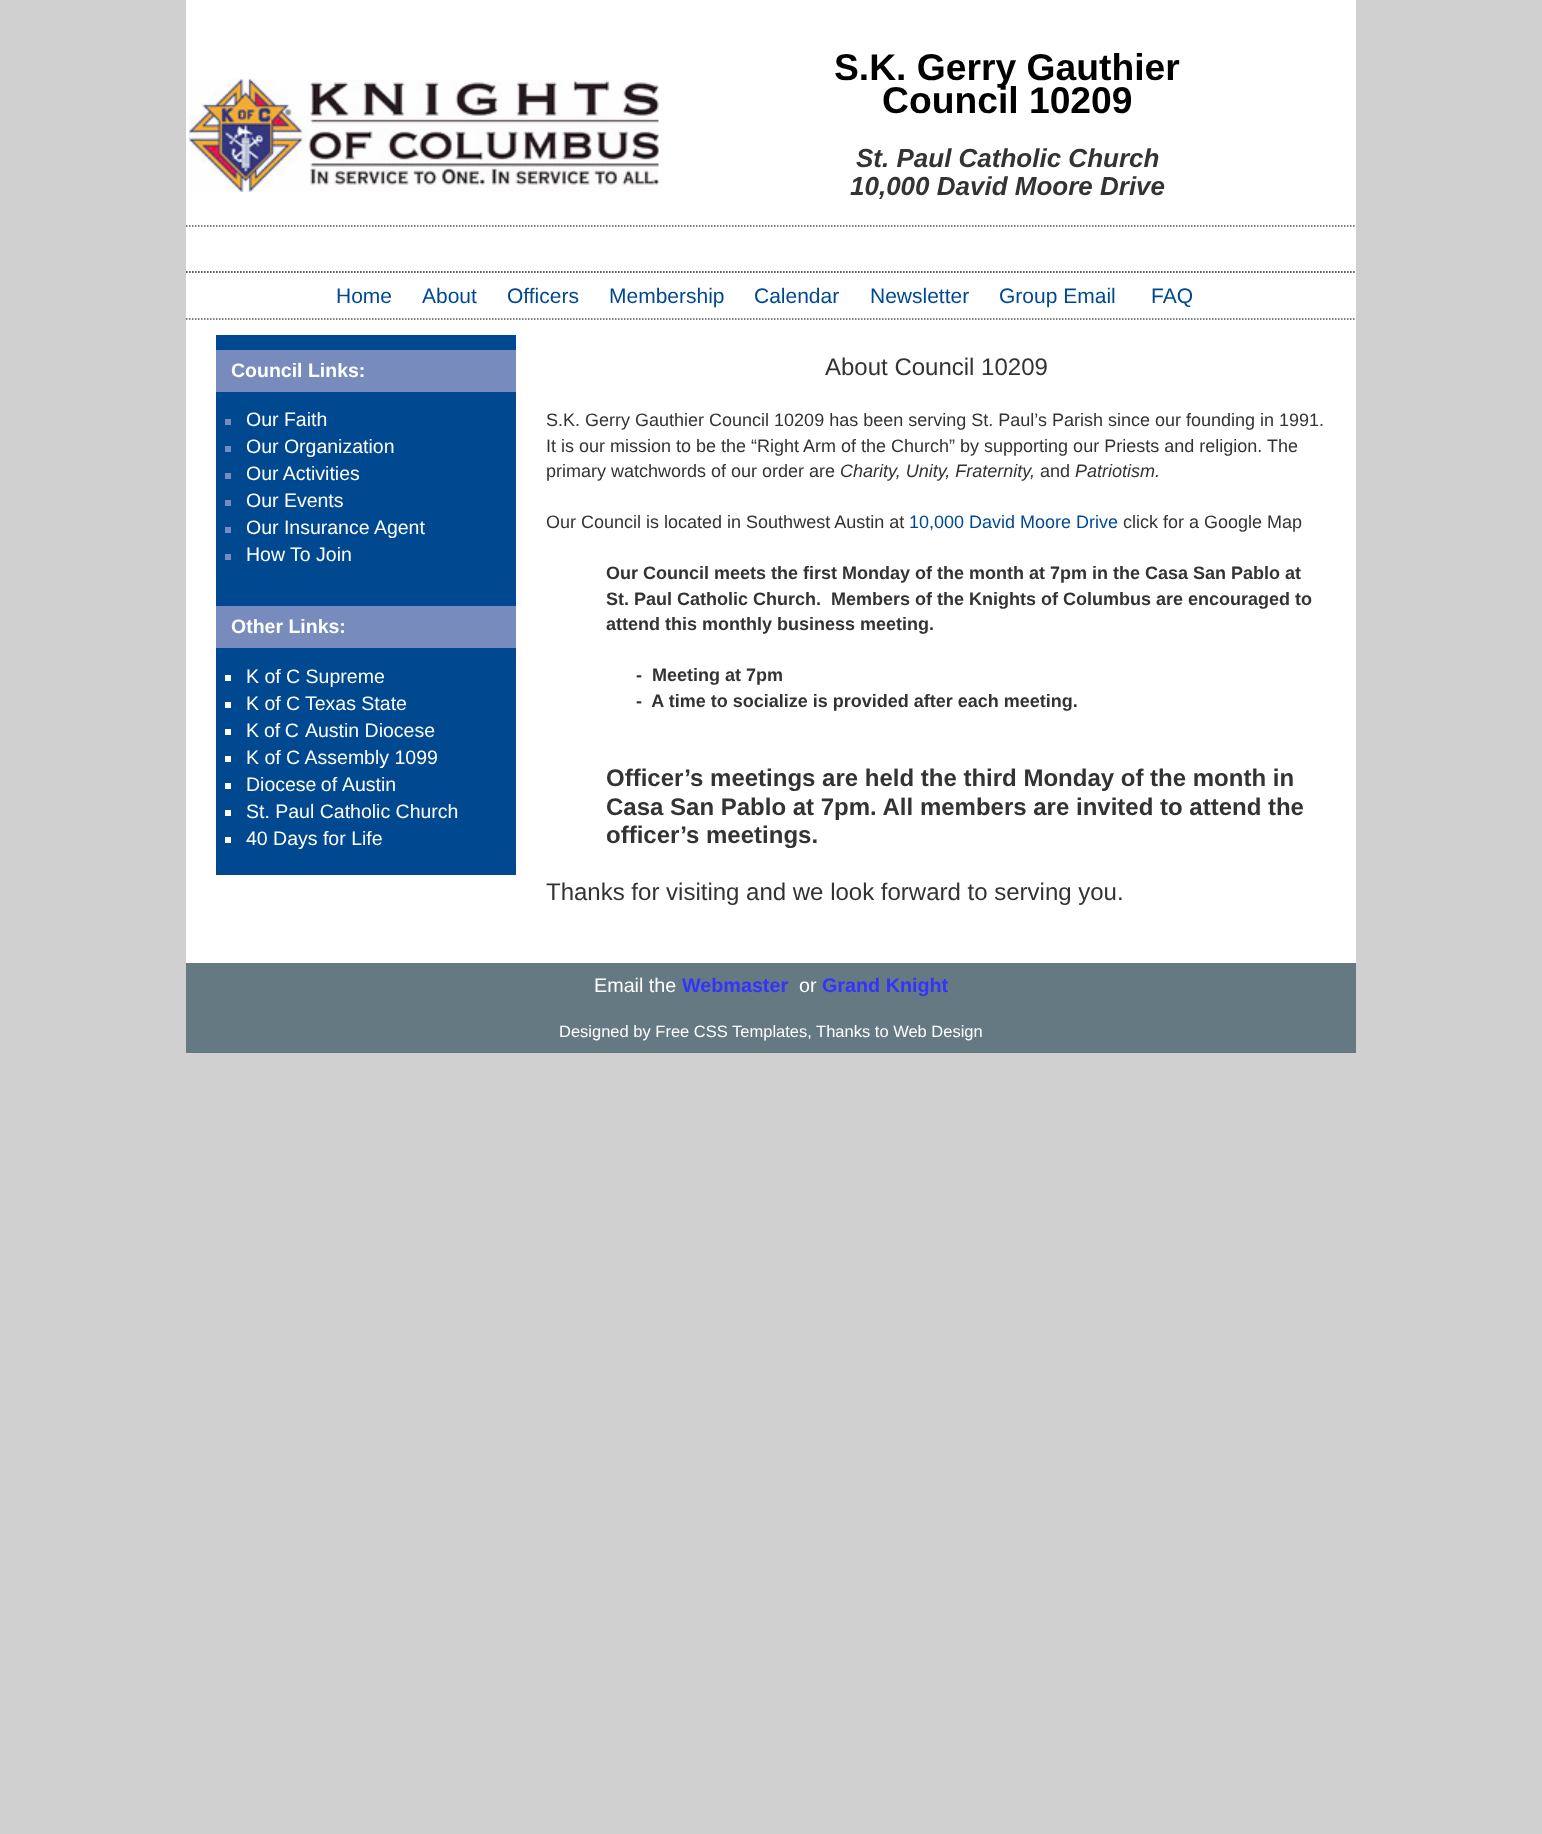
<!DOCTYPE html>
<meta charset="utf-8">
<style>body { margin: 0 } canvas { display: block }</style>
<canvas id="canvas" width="1542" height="1834"></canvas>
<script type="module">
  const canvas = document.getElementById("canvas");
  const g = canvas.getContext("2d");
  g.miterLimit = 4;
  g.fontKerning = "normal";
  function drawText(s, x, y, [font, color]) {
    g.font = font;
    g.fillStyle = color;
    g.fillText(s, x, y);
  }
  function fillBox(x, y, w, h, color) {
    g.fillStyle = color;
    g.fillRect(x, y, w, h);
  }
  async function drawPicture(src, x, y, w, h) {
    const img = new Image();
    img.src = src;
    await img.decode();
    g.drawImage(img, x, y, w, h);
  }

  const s1 = ["bold 37.25px Liberation Sans", "#000000"];
  const s2 = ["italic bold 26px Liberation Sans", "#333333"];
  const s3 = ["21px Liberation Sans", "#004990"];
  const s4 = ["bold 19.5px Liberation Sans", "#FFFFFF"];
  const s5 = ["19.5px Liberation Sans", "#FFFFFF"];
  const s6 = ["24px Liberation Sans", "#333333"];
  const s7 = ["18px Liberation Sans", "#333333"];
  const s8 = ["italic 18px Liberation Sans", "#333333"];
  const s9 = ["18px Liberation Sans", "#004990"];
  const s10 = ["bold 18px Liberation Sans", "#333333"];
  const s11 = ["bold 24px Liberation Sans", "#333333"];
  const s12 = ["19.75px Liberation Sans", "#FFFFFF"];
  const s13 = ["bold 19.75px Liberation Sans", "#3333FF"];
  const s14 = ["16.5px Liberation Sans", "#FFFFFF"];

  fillBox(0, 0, 1542, 1834, "#D0D0D0");
  fillBox(186, 0, 1170, 963, "#FFFFFF");
  await drawPicture("pic1.png", 189, 79, 470, 113);
  drawText("S.K. Gerry Gauthier", 834, 80, s1);
  drawText("Council 10209", 882, 113, s1);
  drawText("St. Paul Catholic Church", 856, 167, s2);
  drawText("10,000 David Moore Drive", 850, 195, s2);
  g.beginPath();
  g.moveTo(186, 226);
  g.lineTo(1356, 226);
  g.strokeStyle = "#555555";
  g.lineWidth = 1.5;
  g.setLineDash([1.5, 1.5]);
  g.stroke();
  g.beginPath();
  g.moveTo(186, 272);
  g.lineTo(1356, 272);
  g.stroke();
  g.beginPath();
  g.moveTo(186, 272);
  g.lineTo(1356, 272);
  g.stroke();
  g.beginPath();
  g.moveTo(186, 319);
  g.lineTo(1356, 319);
  g.stroke();
  drawText("Home", 336, 303, s3);
  drawText("About", 422, 303, s3);
  drawText("Officers", 507, 303, s3);
  drawText("Membership", 609, 303, s3);
  drawText("Calendar", 754, 303, s3);
  drawText("Newsletter", 870, 303, s3);
  drawText("Group Email", 999, 303, s3);
  drawText("FAQ", 1151, 303, s3);
  fillBox(216, 335, 300, 540, "#004990");
  fillBox(216, 350, 300, 42, "#788BBD");
  drawText("Council Links:", 231, 377, s4);
  fillBox(225, 419, 6, 6, "#788BBD");
  drawText("Our Faith", 246, 426, s5);
  fillBox(225, 446, 6, 6, "#788BBD");
  drawText("Our Organization", 246, 453, s5);
  fillBox(225, 473, 6, 6, "#788BBD");
  drawText("Our Activities", 246, 480, s5);
  fillBox(225, 500, 6, 6, "#788BBD");
  drawText("Our Events", 246, 507, s5);
  fillBox(225, 527, 6, 6, "#788BBD");
  drawText("Our Insurance Agent", 246, 534, s5);
  fillBox(225, 554, 6, 6, "#788BBD");
  drawText("How To Join", 246, 561, s5);
  fillBox(216, 606, 300, 42, "#788BBD");
  drawText("Other Links:", 231, 633, s4);
  fillBox(225, 675, 6, 6, "#FFFFFF");
  drawText("K of C Supreme", 246, 683, s5);
  fillBox(225, 702, 6, 6, "#FFFFFF");
  drawText("K of C", 246, 710, s5);
  drawText("Texas State", 305, 710, s5);
  fillBox(225, 729, 6, 6, "#FFFFFF");
  drawText("K", 246, 737, s5);
  g.wordSpacing = "-1px";
  drawText("of C", 264, 737, s5);
  g.wordSpacing = "0px";
  drawText("Austin Diocese", 305, 737, s5);
  fillBox(225, 756, 6, 6, "#FFFFFF");
  drawText("K of C Assembly 1099", 246, 764, s5);
  fillBox(225, 783, 6, 6, "#FFFFFF");
  g.wordSpacing = "-1px";
  drawText("Diocese of", 246, 791, s5);
  g.wordSpacing = "0px";
  drawText("Austin", 342, 791, s5);
  fillBox(225, 810, 6, 6, "#FFFFFF");
  drawText("St. Paul Catholic Church", 246, 818, s5);
  fillBox(225, 837, 6, 6, "#FFFFFF");
  drawText("40 Days for Life", 246, 845, s5);
  drawText("About Council 10209", 825, 375, s6);
  drawText("S.K. Gerry Gauthier Council 10209 has been serving St. Paul’s Parish since our founding in 1991.", 546, 426, s7);
  drawText("It is our mission to be the “Right", 546, 452, s7);
  drawText("Arm of the Church” by supporting our Priests and religion. The", 803, 452, s7);
  drawText("primary watchwords of our order are", 546, 477, s7);
  drawText("Charity, Unity, Fraternity,", 840, 477, s8);
  drawText("and", 1040, 477, s7);
  drawText("Patriotism.", 1075, 477, s8);
  drawText("Our Council is located in Southwest Austin at", 546, 528, s7);
  drawText("10,000 David Moore Drive", 909, 528, s9);
  drawText("click for a Google Map", 1123, 528, s7);
  drawText("Our Council meets the first Monday of the month at 7pm in the Casa San Pablo at", 606, 579, s10);
  drawText("St. Paul Catholic Church.  Members of the Knights of Columbus are encouraged to", 606, 605, s10);
  drawText("attend this monthly business meeting.", 606, 630, s10);
  drawText("-  Meeting at 7pm", 636, 681, s10);
  drawText("-  A time to socialize is provided after each meeting.", 636, 707, s10);
  drawText("Officer’s meetings are held the third Monday of the month in", 606, 786, s11);
  drawText("Casa San Pablo at 7pm. All members are invited to attend the", 606, 815, s11);
  drawText("officer’s meetings.", 606, 843, s11);
  drawText("Thanks for visiting and we look forward to serving you.", 546, 900, s6);
  fillBox(186, 963, 1170, 90, "#657983");
  drawText("Email the", 594, 992, s12);
  drawText("Webmaster", 682, 992, s13);
  drawText("or", 799, 992, s12);
  drawText("Grand Knight", 822, 992, s13);
  drawText("Designed by Free CSS Templates, Thanks to Web Design", 559, 1037, s14);
</script>
